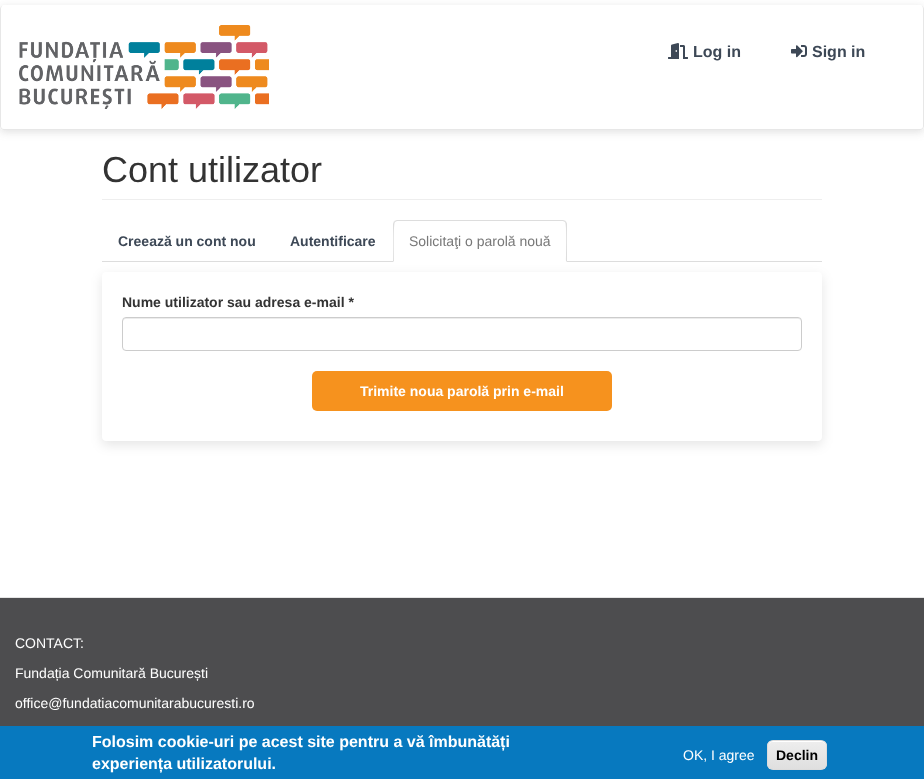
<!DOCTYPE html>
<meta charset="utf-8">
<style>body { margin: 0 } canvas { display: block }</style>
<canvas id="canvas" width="924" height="779"></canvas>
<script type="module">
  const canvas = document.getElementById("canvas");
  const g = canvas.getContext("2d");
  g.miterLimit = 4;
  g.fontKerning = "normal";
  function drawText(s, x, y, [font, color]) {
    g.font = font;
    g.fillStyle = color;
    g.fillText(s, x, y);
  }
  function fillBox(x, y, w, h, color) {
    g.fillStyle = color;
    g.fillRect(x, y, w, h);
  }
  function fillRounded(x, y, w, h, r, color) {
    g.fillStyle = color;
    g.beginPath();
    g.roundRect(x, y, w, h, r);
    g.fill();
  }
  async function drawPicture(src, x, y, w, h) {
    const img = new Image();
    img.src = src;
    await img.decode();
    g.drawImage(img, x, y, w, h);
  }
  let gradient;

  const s1 = ["bold 16px Liberation Sans", "#3D4856"];
  const s2 = ["36px Liberation Sans", "#333333"];
  const s3 = ["bold 14px Liberation Sans", "#3D4856"];
  const s4 = ["14px Liberation Sans", "#777777"];
  const s5 = ["bold 14px Liberation Sans", "#333333"];
  const s6 = ["bold 14px Liberation Sans", "#FFFFFF"];
  const s7 = ["14px Liberation Sans", "#FFFFFF"];
  const s8 = ["bold 16px Liberation Sans", "#FFFFFF"];
  const s9 = ["bold 14px Liberation Sans", "#000000"];

  fillBox(0, 0, 924, 779, "#FFFFFF");
  g.fillStyle = "rgba(99, 99, 99, 0.2)";
  g.filter = "blur(4px)";
  g.beginPath();
  g.roundRect(0, 7, 924, 125, 4);
  g.fill();
  g.filter = "none";
  fillRounded(0, 5, 924, 125, 4, "#FFFFFF");
  g.fillStyle = "#E7E7E7";
  g.beginPath();
  g.moveTo(4, 5);
  g.lineTo(920, 5);
  g.bezierCurveTo(922, 5, 924, 7, 924, 9);
  g.lineTo(924, 126);
  g.bezierCurveTo(924, 128, 922, 130, 920, 130);
  g.lineTo(4, 130);
  g.bezierCurveTo(2, 130, 0, 128, 0, 126);
  g.lineTo(0, 9);
  g.bezierCurveTo(0, 7, 2, 5, 4, 5);
  g.closePath();
  g.moveTo(4, 5);
  g.lineTo(920, 5);
  g.bezierCurveTo(922, 5, 923, 7, 923, 9);
  g.lineTo(923, 126);
  g.bezierCurveTo(923, 128, 922, 129, 920, 129);
  g.lineTo(4, 129);
  g.bezierCurveTo(2, 129, 1, 128, 1, 126);
  g.lineTo(1, 9);
  g.bezierCurveTo(1, 7, 2, 5, 4, 5);
  g.closePath();
  g.fill("evenodd");
  await drawPicture("pic1.png", 19, 25, 250, 84);
  await drawPicture("pic2.png", 668, 43, 20, 16);
  drawText("Log in", 693, 57, s1);
  await drawPicture("pic3.png", 791, 45, 16, 13);
  drawText("Sign in", 812, 57, s1);
  fillBox(102, 199, 720, 1, "#EEEEEE");
  drawText("Cont utilizator", 102, 182, s2);
  fillBox(102, 261, 720, 1, "#DDDDDD");
  drawText("Creează un cont nou", 118, 246, s3);
  drawText("Autentificare", 290, 246, s3);
  g.save();
  g.beginPath();
  g.moveTo(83, 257);
  g.lineTo(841, 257);
  g.lineTo(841, 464);
  g.lineTo(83, 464);
  g.closePath();
  g.moveTo(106, 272);
  g.lineTo(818, 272);
  g.bezierCurveTo(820, 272, 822, 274, 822, 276);
  g.lineTo(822, 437);
  g.bezierCurveTo(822, 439, 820, 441, 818, 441);
  g.lineTo(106, 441);
  g.bezierCurveTo(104, 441, 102, 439, 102, 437);
  g.lineTo(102, 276);
  g.bezierCurveTo(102, 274, 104, 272, 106, 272);
  g.closePath();
  g.clip("evenodd");
  g.fillStyle = "rgba(0, 0, 0, 0.1)";
  g.filter = "blur(6px)";
  g.beginPath();
  g.roundRect(102, 276, 720, 169, 4);
  g.fill();
  g.filter = "none";
  g.restore();
  g.fillStyle = "#FFFFFF";
  g.beginPath();
  g.roundRect(393, 220, 174, 42, [4, 4, 0, 0]);
  g.fill();
  g.fillStyle = "#DDDDDD";
  g.beginPath();
  g.moveTo(397, 220);
  g.lineTo(394, 221);
  g.lineTo(395, 222);
  g.lineTo(397, 221);
  g.lineTo(563, 221);
  g.lineTo(565, 222);
  g.lineTo(566, 221);
  g.lineTo(563, 220);
  g.closePath();
  g.fill();
  g.beginPath();
  g.moveTo(567, 262);
  g.lineTo(567, 224);
  g.bezierCurveTo(567, 223, 566, 222, 566, 221);
  g.lineTo(565, 222);
  g.bezierCurveTo(567, 224, 566, 256, 566, 261);
  g.closePath();
  g.fill();
  g.beginPath();
  g.moveTo(393, 262);
  g.lineTo(394, 261);
  g.bezierCurveTo(394, 256, 393, 224, 395, 222);
  g.lineTo(394, 221);
  g.lineTo(393, 224);
  g.closePath();
  g.fill();
  drawText("Solicitaţi o parolă nouă", 409, 246, s4);
  drawText("Nume utilizator sau adresa e-mail *", 122, 307, s5);
  g.fillStyle = "#ECECEC";
  g.beginPath();
  g.moveTo(126, 319);
  g.lineTo(798, 319);
  g.bezierCurveTo(800, 319, 801, 320, 801, 322);
  g.lineTo(801, 321);
  g.bezierCurveTo(801, 319, 800, 318, 798, 318);
  g.lineTo(126, 318);
  g.bezierCurveTo(124, 318, 123, 319, 123, 321);
  g.lineTo(123, 322);
  g.bezierCurveTo(123, 320, 124, 319, 126, 319);
  g.closePath();
  g.fill();
  g.beginPath();
  g.roundRect(122.5, 317.5, 679, 33, 3.5);
  g.strokeStyle = "#CCCCCC";
  g.stroke();
  fillRounded(312, 371, 300, 40, 5, "#F6921E");
  drawText("Trimite noua parolă prin e-mail", 360, 396, s6);
  fillBox(0, 598, 924, 128, "#4D4D4F");
  fillBox(0, 597, 924, 1, "#E5E5E5");
  drawText("CONTACT:", 15, 648, s7);
  drawText("Fundația Comunitară București", 15, 678, s7);
  drawText("office@fundatiacomunitarabucuresti.ro", 15, 708, s7);
  fillBox(0, 726, 924, 53, "#0779BF");
  drawText("Folosim cookie-uri pe acest site pentru a vă îmbunătăți", 92, 747, s8);
  drawText("experiența utilizatorului.", 92, 769, s8);
  drawText("OK, I agree", 683, 760, s7);
  g.save();
  g.beginPath();
  g.roundRect(767, 740, 60, 30, 6);
  g.clip();
  gradient = g.createLinearGradient(797, 741, 797, 769);
  gradient.addColorStop(0.05, "#EDEDED");
  gradient.addColorStop(1, "#DFDFDF");
  g.fillStyle = gradient;
  g.fillRect(767, 741, 60, 28);
  g.restore();
  g.beginPath();
  g.moveTo(773, 742);
  g.lineTo(821, 742);
  g.bezierCurveTo(824, 742, 826, 744, 826, 747);
  g.bezierCurveTo(826, 739, 819, 741, 813, 741);
  g.lineTo(781, 741);
  g.bezierCurveTo(775, 741, 768, 739, 768, 747);
  g.bezierCurveTo(768, 744, 770, 742, 773, 742);
  g.closePath();
  g.fill();
  g.beginPath();
  g.roundRect(767.5, 740.5, 59, 29, 5.5);
  g.strokeStyle = "#DCDCDC";
  g.stroke();
  drawText("Declin", 776, 760, s9);
</script>
